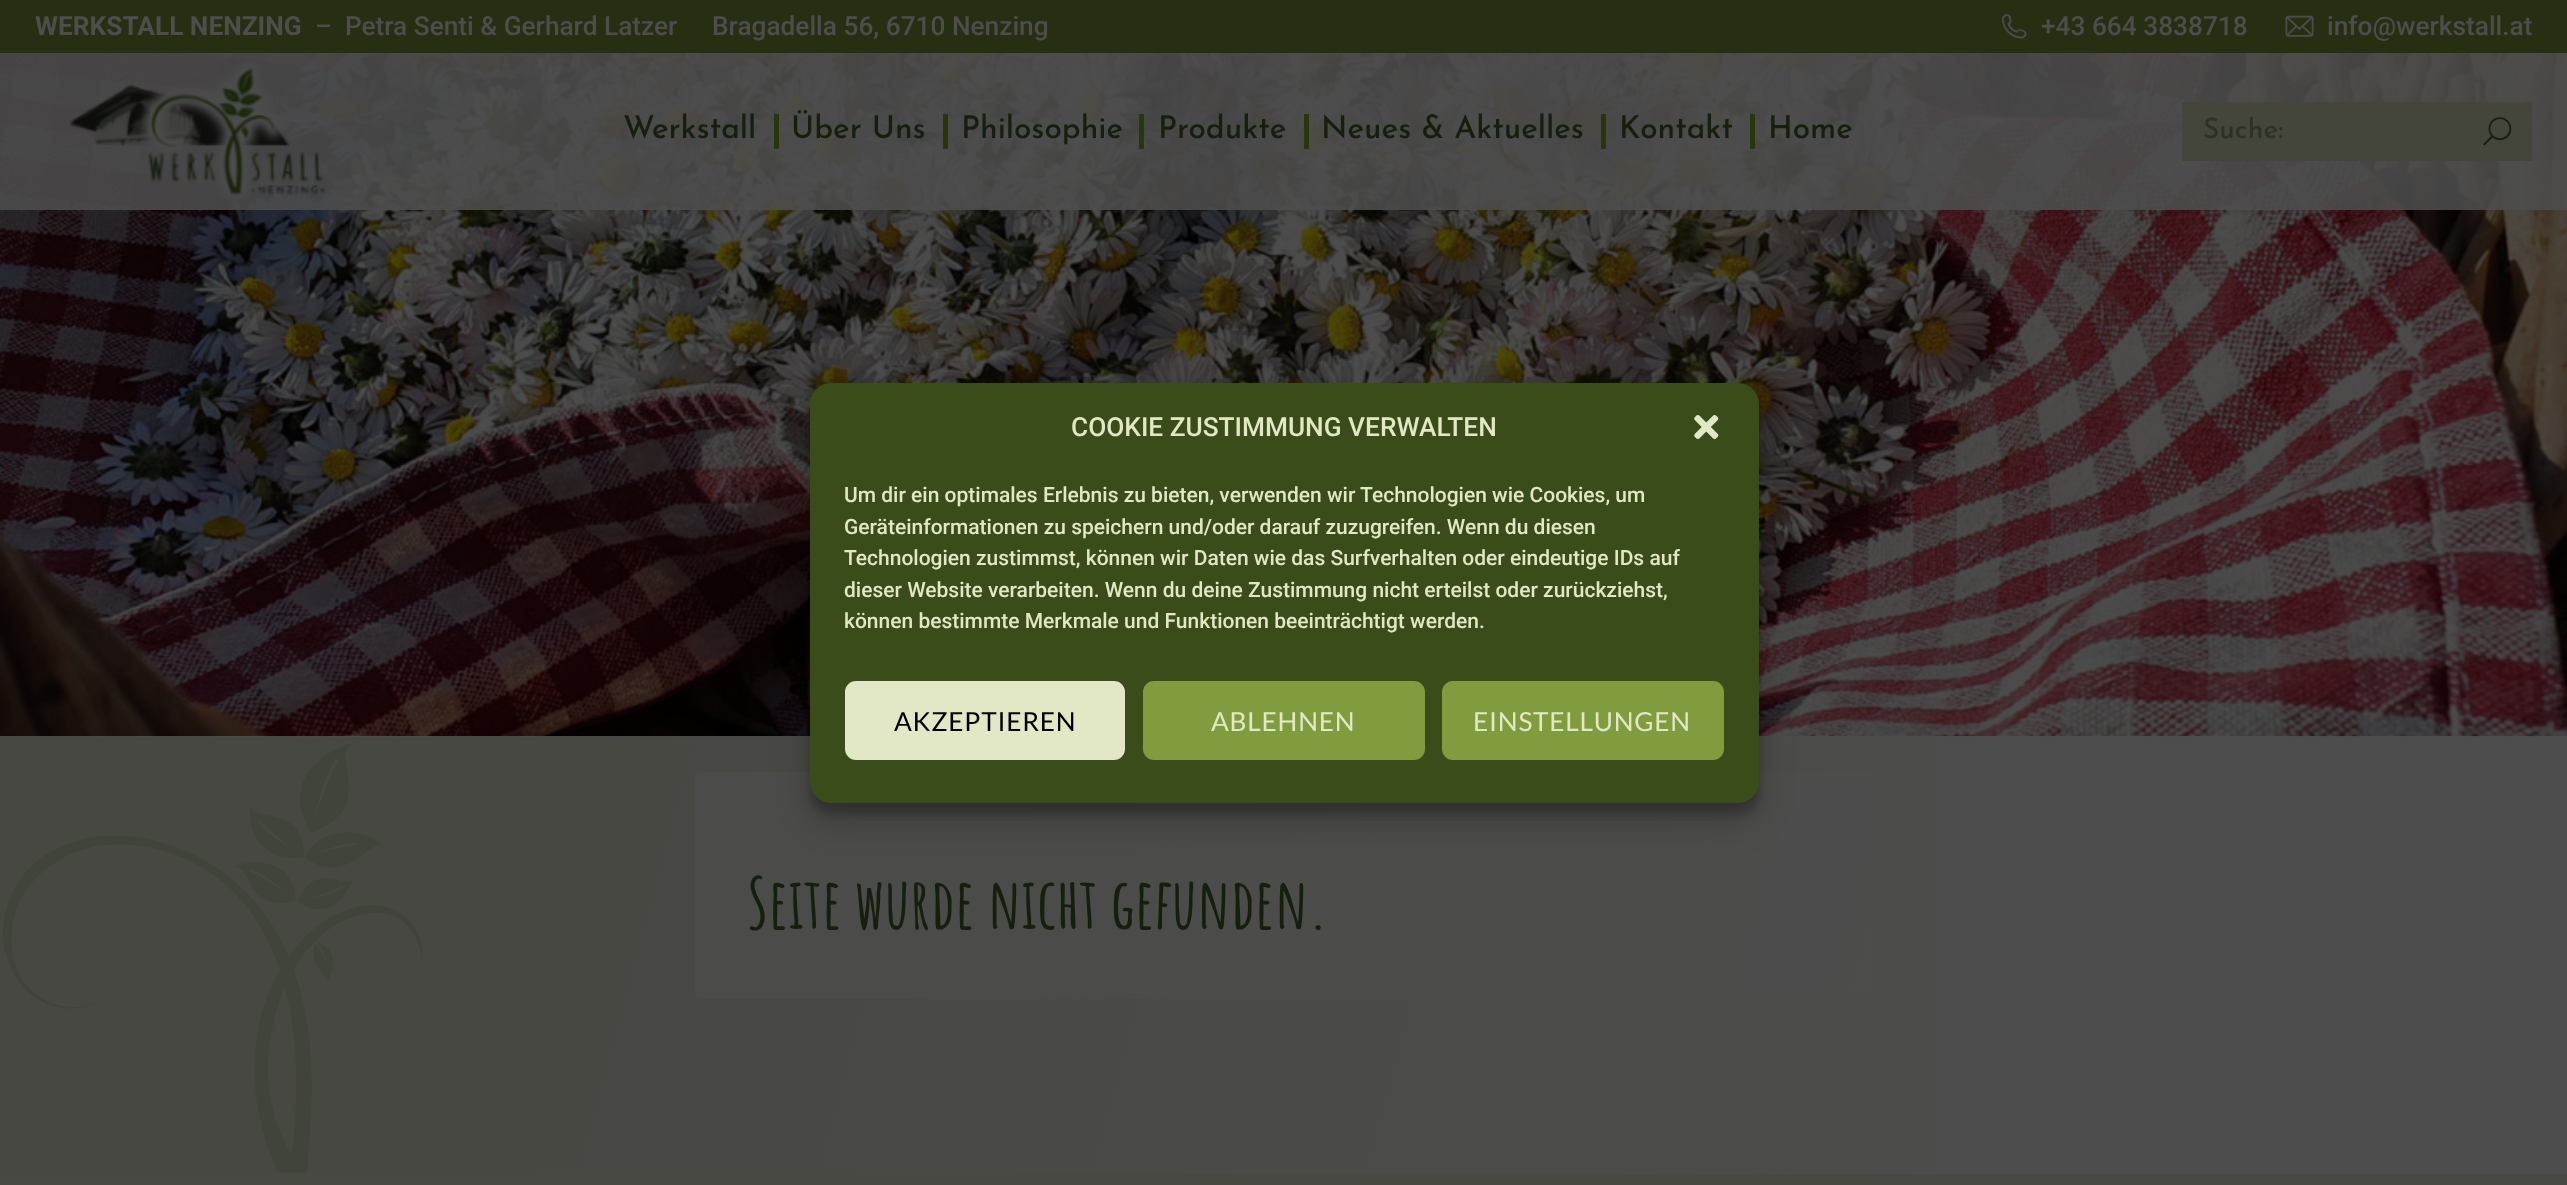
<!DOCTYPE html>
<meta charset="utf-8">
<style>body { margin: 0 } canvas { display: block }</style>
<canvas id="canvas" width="2567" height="1185"></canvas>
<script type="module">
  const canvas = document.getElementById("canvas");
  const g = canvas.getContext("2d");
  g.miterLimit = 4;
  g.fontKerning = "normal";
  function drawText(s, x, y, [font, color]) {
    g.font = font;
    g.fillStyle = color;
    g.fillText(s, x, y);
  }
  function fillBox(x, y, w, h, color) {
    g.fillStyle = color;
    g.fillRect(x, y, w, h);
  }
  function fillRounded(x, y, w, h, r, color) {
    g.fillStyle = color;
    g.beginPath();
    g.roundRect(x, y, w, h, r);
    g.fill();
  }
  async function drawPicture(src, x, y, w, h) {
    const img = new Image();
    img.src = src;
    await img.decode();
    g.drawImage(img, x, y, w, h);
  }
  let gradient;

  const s1 = ["bold 26.25px Roboto", "#4D4D4D"];
  const s2 = ["500 26.25px Roboto", "#4D4D4D"];
  const s3 = ["500 31.5px Josefin Sans", "#161E0E"];
  const s4 = ["500 28px Josefin Sans", "#2D3224"];
  const s5 = ["500 26.25px Roboto", "#E2E8C5"];
  const s6 = ["500 21px Roboto", "#E2E8C5"];
  const s7 = ["26.25px Lato", "#000000"];
  const s8 = ["26.25px Lato", "#E2E8C5"];
  const s9 = ["bold 70px Amatic SC", "#161E0E"];

  fillBox(0, 0, 2567, 1185, "#4D4D4D");
  await drawPicture("pic6.png", 0, 53, 2567, 684);
  fillBox(0, 53, 2567, 157, "rgba(77, 77, 77, 0.88)");
  fillBox(0, 0, 2567, 53, "#272F13");
  drawText("WERKSTALL NENZING", 35, 35, s1);
  drawText("–  Petra Senti & Gerhard Latzer", 315, 35, s2);
  drawText("Bragadella 56, 6710 Nenzing", 712, 35, s2);
  await drawPicture("pic1.png", 2002, 14, 25, 25);
  drawText("+43 664 3838718", 2041, 35, s2);
  await drawPicture("pic2.png", 2285, 15, 29, 22);
  drawText("info@werkstall.at", 2327, 35, s2);
  await drawPicture("pic3.png", 70, 61, 256, 140);
  drawText("Werkstall", 623, 138, s3);
  fillBox(774, 114, 5, 35, "#29360B");
  drawText("Über Uns", 791, 138, s3);
  fillBox(943, 114, 5, 35, "#29360B");
  drawText("Philosophie", 961, 138, s3);
  fillBox(1139, 114, 5, 35, "#29360B");
  drawText("Produkte", 1158, 138, s3);
  fillBox(1304, 114, 5, 35, "#29360B");
  drawText("Neues & Aktuelles", 1321, 138, s3);
  fillBox(1601, 114, 5, 35, "#29360B");
  drawText("Kontakt", 1619, 138, s3);
  fillBox(1750, 114, 5, 35, "#29360B");
  drawText("Home", 1768, 138, s3);
  fillBox(2182, 102, 350, 59, "#44463B");
  g.save();
  g.beginPath();
  g.rect(2203, 117, 308, 28);
  g.clip();
  drawText("Suche:", 2203, 138, s4);
  g.restore();
  await drawPicture("pic4.png", 2483, 117, 29, 29);
  gradient = g.createLinearGradient(2536, 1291, 31, 620);
  gradient.addColorStop(0.12, "#4D4D4D");
  gradient.addColorStop(0.82, "#474842");
  g.fillStyle = gradient;
  g.fillRect(0, 737, 1935, 437);
  fillRounded(695, 772, 1178, 227, 5, "rgba(77, 77, 77, 0.5)");
  g.fillStyle = "rgba(0, 0, 0, 0.23)";
  g.filter = "blur(5px)";
  g.beginPath();
  g.roundRect(810, 394, 949, 420, 21);
  g.fill();
  g.filter = "none";
  g.fillStyle = "rgba(0, 0, 0, 0.19)";
  g.filter = "blur(17.5px)";
  g.beginPath();
  g.roundRect(810, 401, 949, 420, 21);
  g.fill();
  g.filter = "none";
  fillRounded(810, 383, 949, 420, 21, "#3A4C19");
  drawText("COOKIE ZUSTIMMUNG VERWALTEN", 1071, 436, s5);
  await drawPicture("pic5.png", 1694, 415, 25, 24);
  drawText("Um dir ein optimales Erlebnis zu bieten, verwenden wir Technologien wie Cookies, um", 844, 502, s6);
  drawText("Geräteinformationen zu speichern und/oder darauf zuzugreifen. Wenn du diesen", 844, 534, s6);
  drawText("Technologien zustimmst, können wir Daten wie das Surfverhalten oder eindeutige IDs auf", 844, 565, s6);
  drawText("dieser Website verarbeiten. Wenn du deine Zustimmung nicht erteilst oder zurückziehst,", 844, 597, s6);
  drawText("können bestimmte Merkmale und Funktionen beeinträchtigt werden.", 844, 628, s6);
  g.beginPath();
  g.roundRect(846, 682, 278, 77, 10);
  g.fill();
  g.strokeStyle = "#E2E8C5";
  g.lineWidth = 2;
  g.stroke();
  g.letterSpacing = "0.75px";
  drawText("AKZEPTIEREN", 894, 731, s7);
  g.fillStyle = "#819B3F";
  g.beginPath();
  g.roundRect(1144, 682, 280, 77, 10);
  g.fill();
  g.strokeStyle = "#819B3F";
  g.stroke();
  drawText("ABLEHNEN", 1211, 731, s8);
  g.fillStyle = "#819B3F";
  g.beginPath();
  g.roundRect(1443, 682, 280, 77, 10);
  g.fill();
  g.stroke();
  drawText("EINSTELLUNGEN", 1473, 731, s8);
  await drawPicture("pic7.png", 3, 743, 420, 430);
  g.letterSpacing = "0px";
  drawText("Seite wurde nicht gefunden.", 747, 929, s9);
  fillBox(0, 1174, 2567, 11, "#494944");
</script>
